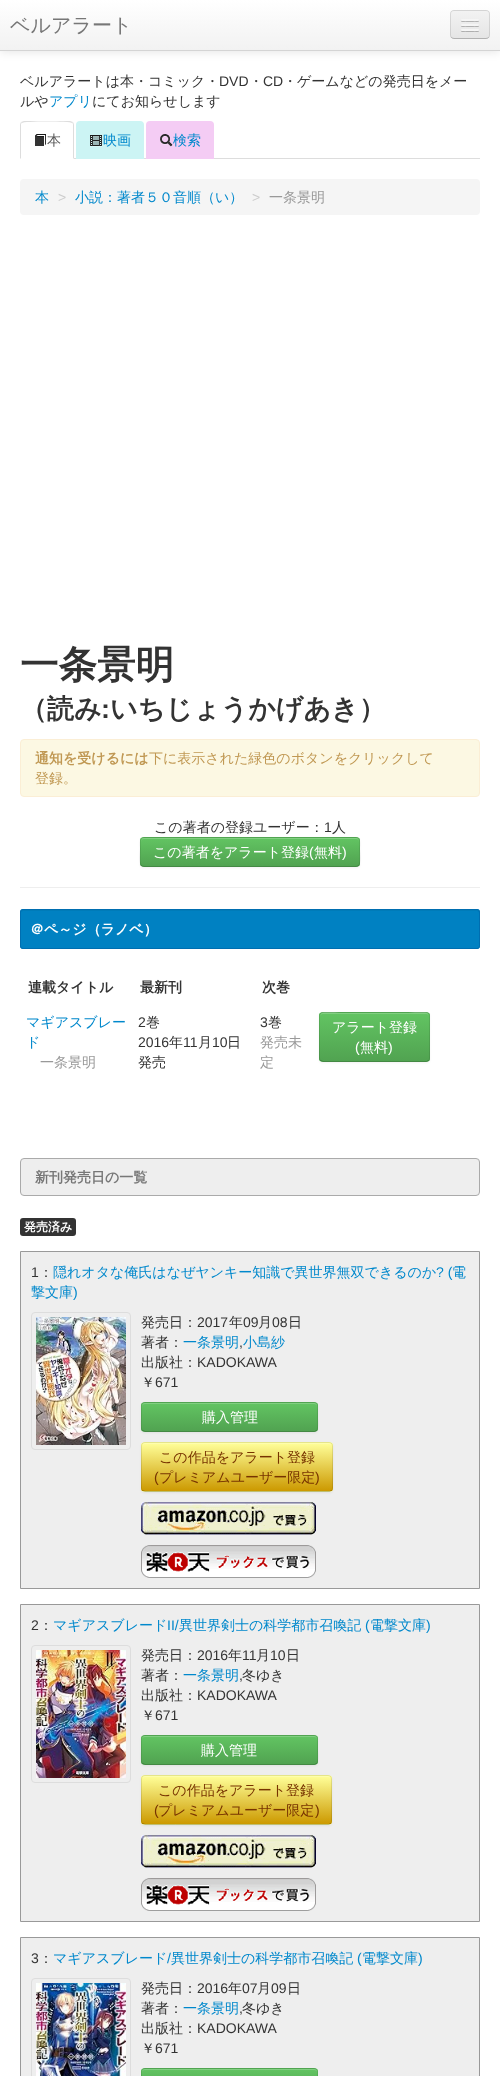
<!DOCTYPE html>
<meta charset="utf-8">
<style>body { margin: 0 } canvas { display: block }</style>
<canvas id="canvas" width="500" height="2076"></canvas>
<script type="module">
  const canvas = document.getElementById("canvas");
  const g = canvas.getContext("2d");
  g.miterLimit = 4;
  g.fontKerning = "normal";
  function drawText(s, x, y, [font, color]) {
    g.font = font;
    g.fillStyle = color;
    g.fillText(s, x, y);
  }
  function fillBox(x, y, w, h, color) {
    g.fillStyle = color;
    g.fillRect(x, y, w, h);
  }
  function fillRounded(x, y, w, h, r, color) {
    g.fillStyle = color;
    g.beginPath();
    g.roundRect(x, y, w, h, r);
    g.fill();
  }
  async function drawPicture(src, x, y, w, h) {
    const img = new Image();
    img.src = src;
    await img.decode();
    g.drawImage(img, x, y, w, h);
  }
  let gradient;

  const s1 = ["500 20px WenQuanYi Zen Hei", "#777777"];
  const s2 = ["500 14px WenQuanYi Zen Hei", "#333333"];
  const s3 = ["14px Liberation Sans", "#333333"];
  const s4 = ["500 14px WenQuanYi Zen Hei", "#0088CC"];
  const s5 = ["500 14px WenQuanYi Zen Hei", "#555555"];
  const s6 = ["14px Liberation Sans", "#CCCCCC"];
  const s7 = ["500 14px WenQuanYi Zen Hei", "#999999"];
  const s8 = ["bold 38.5px WenQuanYi Zen Hei", "#333333"];
  const s9 = ["bold 27px WenQuanYi Zen Hei", "#333333"];
  const s10 = ["bold 27px Liberation Sans", "#333333"];
  const s11 = ["bold 14px WenQuanYi Zen Hei", "#C09853"];
  const s12 = ["500 14px WenQuanYi Zen Hei", "#C09853"];
  const s13 = ["500 14px WenQuanYi Zen Hei", "#FFFFFF"];
  const s14 = ["14px Liberation Sans", "#FFFFFF"];
  const s15 = ["bold 14px WenQuanYi Zen Hei", "#FFFFFF"];
  const s16 = ["bold 14px WenQuanYi Zen Hei", "#333333"];
  const s17 = ["bold 14px WenQuanYi Zen Hei", "#777777"];
  const s18 = ["bold 12px WenQuanYi Zen Hei", "#FFFFFF"];
  const s19 = ["14px Liberation Sans", "#0088CC"];
  const s20 = ["500 14px WenQuanYi Zen Hei", "#773300"];
  const s21 = ["14px Liberation Sans", "#773300"];

  fillBox(0, 0, 500, 2076, "#FFFFFF");
  g.fillStyle = "rgba(0, 0, 0, 0.1)";
  g.filter = "blur(5px)";
  g.beginPath();
  g.rect(0, 1, 500, 51);
  g.fill();
  g.filter = "none";
  gradient = g.createLinearGradient(250, 0, 250, 50);
  gradient.addColorStop(0, "#FFFFFF");
  gradient.addColorStop(1, "#F2F2F2");
  g.fillStyle = gradient;
  g.fillRect(0, 0, 500, 50);
  fillBox(0, 50, 500, 1, "#D4D4D4");
  drawText("ベルアラート", 10, 32, s1);
  fillRounded(450, 10, 40, 29, 4, "#EDEDED");
  g.save();
  g.beginPath();
  g.roundRect(450, 10, 40, 29, 4);
  g.clip();
  gradient = g.createLinearGradient(470, 11, 470, 38);
  gradient.addColorStop(0, "#F2F2F2");
  gradient.addColorStop(1, "#E5E5E5");
  g.fillStyle = gradient;
  g.fillRect(450, 11, 40, 27);
  g.restore();
  g.beginPath();
  g.moveTo(488.5, 37.5);
  g.bezierCurveTo(488, 38, 487, 38.5, 486, 38.5);
  g.lineTo(454, 38.5);
  g.bezierCurveTo(453, 38.5, 452, 38, 451.5, 37.5);
  g.strokeStyle = "rgba(0, 0, 0, 0.25)";
  g.stroke();
  g.beginPath();
  g.moveTo(451.5, 37.5);
  g.bezierCurveTo(451, 37, 450.5, 36, 450.5, 35);
  g.lineTo(450.5, 14);
  g.bezierCurveTo(450.5, 13, 451, 12, 451.5, 11.5);
  g.bezierCurveTo(452, 11, 453, 10.5, 454, 10.5);
  g.lineTo(486, 10.5);
  g.bezierCurveTo(487, 10.5, 488, 11, 488.5, 11.5);
  g.bezierCurveTo(489, 12, 489.5, 13, 489.5, 14);
  g.lineTo(489.5, 35);
  g.bezierCurveTo(489.5, 36, 489, 37, 488.5, 37.5);
  g.strokeStyle = "rgba(0, 0, 0, 0.1)";
  g.stroke();
  g.fillStyle = "#B2B2B2";
  g.beginPath();
  g.moveTo(461, 20.5);
  g.bezierCurveTo(460, 22.5, 464.5, 22, 464.5, 22);
  g.lineTo(475.5, 22);
  g.bezierCurveTo(475.5, 22, 480, 22.5, 479, 20.5);
  g.bezierCurveTo(478, 21.5, 471.5, 21, 470, 21);
  g.bezierCurveTo(468.5, 21, 462, 21.5, 461, 20.5);
  g.closePath();
  g.fill();
  fillRounded(461, 19, 18, 2, 1, "#F5F5F5");
  g.fillStyle = "#B0B0B0";
  g.beginPath();
  g.moveTo(461, 25.5);
  g.bezierCurveTo(460, 27.5, 464.5, 27, 464.5, 27);
  g.lineTo(475.5, 27);
  g.bezierCurveTo(475.5, 27, 480, 27.5, 479, 25.5);
  g.bezierCurveTo(478, 26.5, 471.5, 26, 470, 26);
  g.bezierCurveTo(468.5, 26, 462, 26.5, 461, 25.5);
  g.closePath();
  g.fill();
  fillRounded(461, 24, 18, 2, 1, "#F5F5F5");
  g.fillStyle = "#AEAEAE";
  g.beginPath();
  g.moveTo(461, 30.5);
  g.bezierCurveTo(460, 32.5, 464.5, 32, 464.5, 32);
  g.lineTo(475.5, 32);
  g.bezierCurveTo(475.5, 32, 480, 32.5, 479, 30.5);
  g.bezierCurveTo(478, 31.5, 471.5, 31, 470, 31);
  g.bezierCurveTo(468.5, 31, 462, 31.5, 461, 30.5);
  g.closePath();
  g.fill();
  fillRounded(461, 29, 18, 2, 1, "#F5F5F5");
  drawText("ベルアラートは本・コミック・", 20, 86, s2);
  drawText("DVD", 219, 86, s3);
  drawText("・", 249, 86, s2);
  drawText("CD", 263, 86, s3);
  drawText("・ゲームなどの発売日をメー", 283, 86, s2);
  drawText("ルや", 20, 106, s2);
  drawText("アプリ", 49, 106, s4);
  drawText("にてお知らせします", 92, 106, s2);
  fillBox(74, 158, 406, 1, "#DDDDDD");
  g.beginPath();
  g.moveTo(24, 121);
  g.lineTo(21, 122);
  g.lineTo(22, 123);
  g.bezierCurveTo(23, 121, 71, 121, 72, 123);
  g.lineTo(73, 122);
  g.lineTo(70, 121);
  g.closePath();
  g.fill();
  g.beginPath();
  g.moveTo(74, 159);
  g.lineTo(74, 125);
  g.bezierCurveTo(74, 124, 73.5, 123, 73, 122);
  g.lineTo(72, 123);
  g.bezierCurveTo(73, 123, 73, 124, 73, 125);
  g.lineTo(73, 158);
  g.closePath();
  g.moveTo(20, 159);
  g.lineTo(21, 158);
  g.lineTo(21, 125);
  g.bezierCurveTo(21, 124, 21, 123, 22, 123);
  g.lineTo(21, 122);
  g.bezierCurveTo(20.5, 123, 20, 124, 20, 125);
  g.closePath();
  g.fill();
  await drawPicture("pic1.png", 35, 134, 11, 12);
  drawText("本", 47, 145, s5);
  g.fillStyle = "#CCF4F4";
  g.beginPath();
  g.roundRect(76, 121, 68, 38, [4, 4, 0, 0]);
  g.fill();
  await drawPicture("pic2.png", 90, 135, 12, 12);
  drawText("映画", 103, 145, s4);
  g.fillStyle = "#F4CCF4";
  g.beginPath();
  g.roundRect(146, 121, 68, 38, [4, 4, 0, 0]);
  g.fill();
  await drawPicture("pic3.png", 160, 134, 13, 13);
  drawText("検索", 173, 145, s4);
  fillRounded(20, 179, 460, 36, 4, "#F5F5F5");
  drawText("本", 35, 202, s4);
  drawText(">", 58, 202, s6);
  drawText("小説：著者５０音順（い）", 75, 202, s4);
  drawText(">", 252, 202, s6);
  drawText("一条景明", 269, 202, s7);
  drawText("一条景明", 20, 678, s8);
  drawText("（読み", 20, 718, s9);
  drawText(":", 101, 718, s10);
  drawText("いちじょうかげあき）", 110, 718, s9);
  g.fillStyle = "#FCF8E3";
  g.beginPath();
  g.roundRect(20.5, 739.5, 459, 57, 3.5);
  g.fill();
  g.strokeStyle = "#FBEED5";
  g.stroke();
  drawText("通知を受けるには", 35, 763, s11);
  drawText("下に表示された緑色のボタンをクリックして", 149, 763, s12);
  drawText("登録。", 35, 783, s12);
  drawText("この著者の登録ユーザー：", 154, 832, s2);
  drawText("1", 324, 832, s3);
  drawText("人", 332, 832, s2);
  g.fillStyle = "rgba(0, 0, 0, 0.05)";
  g.filter = "blur(1px)";
  g.beginPath();
  g.roundRect(140, 838, 220, 30, 4);
  g.fill();
  g.filter = "none";
  fillRounded(140, 837, 220, 30, 4, "#5BB75B");
  g.save();
  g.beginPath();
  g.roundRect(140, 837, 220, 30, 4);
  g.clip();
  gradient = g.createLinearGradient(250, 838, 250, 866);
  gradient.addColorStop(0, "#62C462");
  gradient.addColorStop(1, "#51A351");
  g.fillStyle = gradient;
  g.fillRect(140, 838, 220, 28);
  g.restore();
  g.fillStyle = "#81CF81";
  g.beginPath();
  g.moveTo(144, 839);
  g.lineTo(356, 839);
  g.bezierCurveTo(358, 839, 359, 840, 359, 842);
  g.lineTo(359, 841);
  g.bezierCurveTo(359, 839, 358, 838, 356, 838);
  g.lineTo(144, 838);
  g.bezierCurveTo(142, 838, 141, 839, 141, 841);
  g.lineTo(141, 842);
  g.bezierCurveTo(141, 840, 142, 839, 144, 839);
  g.closePath();
  g.fill();
  g.beginPath();
  g.moveTo(358.5, 865.5);
  g.bezierCurveTo(358, 866, 357, 866.5, 356, 866.5);
  g.lineTo(144, 866.5);
  g.bezierCurveTo(143, 866.5, 142, 866, 141.5, 865.5);
  g.strokeStyle = "rgba(0, 0, 0, 0.25)";
  g.stroke();
  g.beginPath();
  g.moveTo(141.5, 865.5);
  g.bezierCurveTo(139, 863, 140.5, 851.5, 140.5, 848.5);
  g.bezierCurveTo(140.5, 845.5, 139, 837.5, 144, 837.5);
  g.lineTo(356, 837.5);
  g.bezierCurveTo(361, 837.5, 359.5, 845.5, 359.5, 848.5);
  g.bezierCurveTo(359.5, 851.5, 361, 863, 358.5, 865.5);
  g.strokeStyle = "rgba(0, 0, 0, 0.1)";
  g.stroke();
  drawText("この著者をアラート登録", 153, 857, s13);
  drawText("(", 309, 857, s14);
  drawText("無料", 314, 857, s13);
  drawText(")", 342, 857, s14);
  fillBox(20, 887, 460, 1, "#EEEEEE");
  fillRounded(20, 909, 460, 40, 3, "#0081C2");
  g.fillStyle = "#007BB8";
  g.beginPath();
  g.moveTo(23, 911);
  g.lineTo(477, 911);
  g.bezierCurveTo(478, 911, 479, 912, 479, 913);
  g.lineTo(479, 911);
  g.lineTo(477, 910);
  g.lineTo(23, 910);
  g.bezierCurveTo(21, 910, 21, 912, 21, 913);
  g.bezierCurveTo(21, 912, 22, 911, 23, 911);
  g.closePath();
  g.fill();
  g.beginPath();
  g.roundRect(20.5, 909.5, 459, 39, 2.5);
  g.strokeStyle = "#006EB0";
  g.stroke();
  drawText("＠ペ～ジ（ラノベ）", 30, 934, s15);
  drawText("連載タイトル", 28, 992, s16);
  drawText("最新刊", 140, 992, s16);
  drawText("次巻", 262, 992, s16);
  drawText("マギアスブレー", 26, 1027, s4);
  drawText("ド", 26, 1047, s4);
  drawText("一条景明", 40, 1067, s7);
  drawText("2", 138, 1027, s3);
  drawText("巻", 146, 1027, s2);
  drawText("2016", 138, 1047, s3);
  drawText("年", 169, 1047, s2);
  drawText("11", 183, 1047, s3);
  drawText("月", 198, 1047, s2);
  drawText("10", 212, 1047, s3);
  drawText("日", 227, 1047, s2);
  drawText("発売", 138, 1067, s2);
  drawText("3", 260, 1027, s3);
  drawText("巻", 268, 1027, s2);
  drawText("発売未", 260, 1047, s7);
  drawText("定", 260, 1067, s7);
  g.fillStyle = "rgba(0, 0, 0, 0.05)";
  g.filter = "blur(1px)";
  g.beginPath();
  g.roundRect(319, 1013, 111, 50, 4);
  g.fill();
  g.filter = "none";
  fillRounded(319, 1012, 111, 50, 4, "#5BB75B");
  g.save();
  g.beginPath();
  g.roundRect(319, 1012, 111, 50, 4);
  g.clip();
  gradient = g.createLinearGradient(375, 1013, 375, 1061);
  gradient.addColorStop(0, "#62C462");
  gradient.addColorStop(1, "#51A351");
  g.fillStyle = gradient;
  g.fillRect(319, 1013, 111, 48);
  g.restore();
  g.fillStyle = "rgba(255, 255, 255, 0.2)";
  g.beginPath();
  g.moveTo(323, 1014);
  g.lineTo(426, 1014);
  g.bezierCurveTo(428, 1014, 429, 1015, 429, 1017);
  g.bezierCurveTo(429, 1008, 411, 1013, 409, 1013);
  g.lineTo(340, 1013);
  g.bezierCurveTo(338, 1013, 320, 1008, 320, 1017);
  g.bezierCurveTo(320, 1015, 321, 1014, 323, 1014);
  g.closePath();
  g.fill();
  g.beginPath();
  g.moveTo(428.5, 1060.5);
  g.lineTo(426.5, 1061.5);
  g.lineTo(340, 1061.5);
  g.lineTo(323, 1061.5);
  g.lineTo(320.5, 1060.5);
  g.strokeStyle = "rgba(0, 0, 0, 0.25)";
  g.stroke();
  g.beginPath();
  g.moveTo(320.5, 1060.5);
  g.bezierCurveTo(320, 1060, 319.5, 1059, 319.5, 1058);
  g.lineTo(319.5, 1016);
  g.bezierCurveTo(319.5, 1015, 320, 1014, 320.5, 1013.5);
  g.bezierCurveTo(321, 1013, 322, 1012.5, 323, 1012.5);
  g.lineTo(426, 1012.5);
  g.bezierCurveTo(427, 1012.5, 428, 1013, 428.5, 1013.5);
  g.bezierCurveTo(429, 1014, 429.5, 1015, 429.5, 1016);
  g.lineTo(429.5, 1058);
  g.bezierCurveTo(429.5, 1059, 429, 1060, 428.5, 1060.5);
  g.strokeStyle = "rgba(0, 0, 0, 0.1)";
  g.stroke();
  drawText("アラート登録", 332, 1032, s13);
  drawText("(", 355, 1052, s14);
  drawText("無料", 360, 1052, s13);
  drawText(")", 388, 1052, s14);
  g.fillStyle = "#EEEEEE";
  g.beginPath();
  g.roundRect(20.5, 1158.5, 459, 37, 3.5);
  g.fill();
  g.strokeStyle = "#AAAAAA";
  g.stroke();
  drawText("新刊発売日の一覧", 35, 1182, s17);
  fillRounded(20, 1218, 56, 18, 3, "#333333");
  drawText("発売済み", 24, 1231, s18);
  g.fillStyle = "#EEEEEE";
  g.beginPath();
  g.rect(20.5, 1251.5, 459, 337);
  g.fill();
  g.strokeStyle = "#999999";
  g.stroke();
  drawText("1", 31, 1277, s3);
  drawText("：", 39, 1277, s2);
  drawText("隠れオタな俺氏はなぜヤンキー知識で異世界無双できるのか", 53, 1277, s4);
  drawText("? (", 436, 1277, s19);
  drawText("電", 452, 1277, s4);
  drawText("撃文庫", 31, 1297, s4);
  drawText(")", 73, 1297, s19);
  g.beginPath();
  g.roundRect(31.5, 1312.5, 99, 137, 3.5);
  g.strokeStyle = "#DDDDDD";
  g.stroke();
  await drawPicture("pic4.png", 36, 1317, 90, 128);
  drawText("発売日：", 141, 1327, s2);
  drawText("2017", 197, 1327, s3);
  drawText("年", 229, 1327, s2);
  drawText("09", 243, 1327, s3);
  drawText("月", 258, 1327, s2);
  drawText("08", 272, 1327, s3);
  drawText("日", 288, 1327, s2);
  drawText("著者：", 141, 1347, s2);
  drawText("一条景明", 183, 1347, s4);
  drawText(",", 239, 1347, s3);
  drawText("小島紗", 243, 1347, s4);
  drawText("出版社：", 141, 1367, s2);
  drawText("KADOKAWA", 197, 1367, s3);
  drawText("￥", 141, 1387, s2);
  drawText("671", 155, 1387, s3);
  g.fillStyle = "rgba(0, 0, 0, 0.05)";
  g.filter = "blur(1px)";
  g.beginPath();
  g.roundRect(141, 1403, 177, 30, 4);
  g.fill();
  g.filter = "none";
  fillRounded(141, 1402, 177, 30, 4, "#5BB75B");
  g.save();
  g.beginPath();
  g.roundRect(141, 1402, 177, 30, 4);
  g.clip();
  gradient = g.createLinearGradient(230, 1403, 230, 1431);
  gradient.addColorStop(0, "#62C462");
  gradient.addColorStop(1, "#51A351");
  g.fillStyle = gradient;
  g.fillRect(141, 1403, 177, 28);
  g.restore();
  g.fillStyle = "#81CF81";
  g.beginPath();
  g.moveTo(145, 1404);
  g.lineTo(314, 1404);
  g.bezierCurveTo(316, 1404, 317, 1405, 317, 1407);
  g.lineTo(317, 1406);
  g.bezierCurveTo(317, 1404, 316, 1403, 314, 1403);
  g.lineTo(145, 1403);
  g.bezierCurveTo(143, 1403, 142, 1404, 142, 1406);
  g.lineTo(142, 1407);
  g.bezierCurveTo(142, 1405, 143, 1404, 145, 1404);
  g.closePath();
  g.fill();
  g.beginPath();
  g.moveTo(316.5, 1430.5);
  g.lineTo(314.5, 1431.5);
  g.lineTo(173, 1431.5);
  g.lineTo(145, 1431.5);
  g.lineTo(142.5, 1430.5);
  g.strokeStyle = "rgba(0, 0, 0, 0.25)";
  g.stroke();
  g.beginPath();
  g.moveTo(142.5, 1430.5);
  g.bezierCurveTo(140.5, 1428.5, 141.5, 1420, 141.5, 1417);
  g.lineTo(141.5, 1409.5);
  g.bezierCurveTo(141.5, 1407, 141, 1402.5, 145, 1402.5);
  g.lineTo(314, 1402.5);
  g.bezierCurveTo(318, 1402.5, 317.5, 1407, 317.5, 1409.5);
  g.lineTo(317.5, 1417);
  g.bezierCurveTo(317.5, 1420, 318.5, 1428.5, 316.5, 1430.5);
  g.strokeStyle = "rgba(0, 0, 0, 0.1)";
  g.stroke();
  drawText("購入管理", 202, 1422, s13);
  g.fillStyle = "rgba(0, 0, 0, 0.05)";
  g.filter = "blur(1px)";
  g.beginPath();
  g.roundRect(141, 1443, 192, 50, 4);
  g.fill();
  g.filter = "none";
  fillRounded(141, 1442, 192, 50, 4, "#FFFF99");
  g.save();
  g.beginPath();
  g.roundRect(141, 1442, 192, 50, 4);
  g.clip();
  gradient = g.createLinearGradient(237, 1443, 237, 1491);
  gradient.addColorStop(0, "#FFFF99");
  gradient.addColorStop(1, "#CC9900");
  g.fillStyle = gradient;
  g.fillRect(141, 1443, 192, 48);
  g.restore();
  g.fillStyle = "#FEFEAC";
  g.beginPath();
  g.moveTo(145, 1444);
  g.lineTo(329, 1444);
  g.bezierCurveTo(331, 1444, 332, 1445, 332, 1447);
  g.bezierCurveTo(332, 1445, 331, 1443, 329, 1443);
  g.lineTo(145, 1443);
  g.bezierCurveTo(143, 1443, 142, 1445, 142, 1447);
  g.bezierCurveTo(142, 1445, 143, 1444, 145, 1444);
  g.closePath();
  g.fill();
  g.beginPath();
  g.moveTo(331.5, 1490.5);
  g.lineTo(329.5, 1491.5);
  g.lineTo(175.5, 1491.5);
  g.lineTo(145, 1491.5);
  g.lineTo(142.5, 1490.5);
  g.strokeStyle = "rgba(0, 0, 0, 0.25)";
  g.stroke();
  g.beginPath();
  g.moveTo(142.5, 1490.5);
  g.bezierCurveTo(142, 1490, 141.5, 1489, 141.5, 1488);
  g.lineTo(141.5, 1446);
  g.bezierCurveTo(141.5, 1445, 142, 1444, 142.5, 1443.5);
  g.bezierCurveTo(143, 1443, 144, 1442.5, 145, 1442.5);
  g.lineTo(329, 1442.5);
  g.bezierCurveTo(330, 1442.5, 331, 1443, 331.5, 1443.5);
  g.bezierCurveTo(332, 1444, 332.5, 1445, 332.5, 1446);
  g.lineTo(332.5, 1488);
  g.bezierCurveTo(332.5, 1489, 332, 1490, 331.5, 1490.5);
  g.strokeStyle = "rgba(0, 0, 0, 0.1)";
  g.stroke();
  drawText("この作品をアラート登録", 159, 1462, s20);
  drawText("(", 154, 1482, s21);
  drawText("プレミアムユーザー限定", 159, 1482, s20);
  drawText(")", 315, 1482, s21);
  await drawPicture("pic5.png", 141, 1502, 175, 33);
  await drawPicture("pic6.png", 141, 1545, 175, 33);
  g.fillStyle = "#EEEEEE";
  g.beginPath();
  g.rect(20.5, 1604.5, 459, 317);
  g.fill();
  g.strokeStyle = "#999999";
  g.stroke();
  drawText("2", 31, 1630, s3);
  drawText("：", 39, 1630, s2);
  drawText("マギアスブレード", 53, 1630, s4);
  drawText("II/", 167, 1630, s19);
  drawText("異世界剣士の科学都市召喚記", 179, 1630, s4);
  drawText("(", 365, 1630, s19);
  drawText("電撃文庫", 370, 1630, s4);
  drawText(")", 426, 1630, s19);
  g.beginPath();
  g.roundRect(31.5, 1645.5, 99, 137, 3.5);
  g.strokeStyle = "#DDDDDD";
  g.stroke();
  await drawPicture("pic7.png", 36, 1650, 90, 128);
  drawText("発売日：", 141, 1660, s2);
  drawText("2016", 197, 1660, s3);
  drawText("年", 228, 1660, s2);
  drawText("11", 242, 1660, s3);
  drawText("月", 256, 1660, s2);
  drawText("10", 270, 1660, s3);
  drawText("日", 286, 1660, s2);
  drawText("著者：", 141, 1680, s2);
  drawText("一条景明", 183, 1680, s4);
  drawText(",", 239, 1680, s3);
  drawText("冬ゆき", 242, 1680, s2);
  drawText("出版社：", 141, 1700, s2);
  drawText("KADOKAWA", 197, 1700, s3);
  drawText("￥", 141, 1720, s2);
  drawText("671", 155, 1720, s3);
  g.fillStyle = "rgba(0, 0, 0, 0.05)";
  g.filter = "blur(1px)";
  g.beginPath();
  g.roundRect(141, 1736, 177, 30, 4);
  g.fill();
  g.filter = "none";
  fillRounded(141, 1735, 177, 30, 4, "#5BB75B");
  g.save();
  g.beginPath();
  g.roundRect(141, 1735, 177, 30, 4);
  g.clip();
  gradient = g.createLinearGradient(230, 1736, 230, 1764);
  gradient.addColorStop(0, "#62C462");
  gradient.addColorStop(1, "#51A351");
  g.fillStyle = gradient;
  g.fillRect(141, 1736, 177, 28);
  g.restore();
  g.fillStyle = "#81CF81";
  g.beginPath();
  g.moveTo(145, 1737);
  g.lineTo(314, 1737);
  g.bezierCurveTo(316, 1737, 317, 1738, 317, 1740);
  g.lineTo(317, 1739);
  g.bezierCurveTo(317, 1737, 316, 1736, 314, 1736);
  g.lineTo(145, 1736);
  g.bezierCurveTo(143, 1736, 142, 1737, 142, 1739);
  g.lineTo(142, 1740);
  g.bezierCurveTo(142, 1738, 143, 1737, 145, 1737);
  g.closePath();
  g.fill();
  g.beginPath();
  g.moveTo(316.5, 1763.5);
  g.lineTo(314.5, 1764.5);
  g.lineTo(173, 1764.5);
  g.lineTo(145, 1764.5);
  g.lineTo(142.5, 1763.5);
  g.strokeStyle = "rgba(0, 0, 0, 0.25)";
  g.stroke();
  g.beginPath();
  g.moveTo(142.5, 1763.5);
  g.bezierCurveTo(140.5, 1761.5, 141.5, 1753, 141.5, 1750);
  g.lineTo(141.5, 1742.5);
  g.bezierCurveTo(141.5, 1740, 141, 1735.5, 145, 1735.5);
  g.lineTo(314, 1735.5);
  g.bezierCurveTo(318, 1735.5, 317.5, 1740, 317.5, 1742.5);
  g.lineTo(317.5, 1750);
  g.bezierCurveTo(317.5, 1753, 318.5, 1761.5, 316.5, 1763.5);
  g.strokeStyle = "rgba(0, 0, 0, 0.1)";
  g.stroke();
  drawText("購入管理", 201, 1755, s13);
  g.fillStyle = "rgba(0, 0, 0, 0.05)";
  g.filter = "blur(1px)";
  g.beginPath();
  g.roundRect(141, 1776, 191, 50, 4);
  g.fill();
  g.filter = "none";
  fillRounded(141, 1775, 191, 50, 4, "#FFFF99");
  g.save();
  g.beginPath();
  g.roundRect(141, 1775, 191, 50, 4);
  g.clip();
  gradient = g.createLinearGradient(237, 1776, 237, 1824);
  gradient.addColorStop(0, "#FFFF99");
  gradient.addColorStop(1, "#CC9900");
  g.fillStyle = gradient;
  g.fillRect(141, 1776, 191, 48);
  g.restore();
  g.fillStyle = "#FEFEAC";
  g.beginPath();
  g.moveTo(145, 1777);
  g.lineTo(328, 1777);
  g.bezierCurveTo(330, 1777, 331, 1778, 331, 1780);
  g.bezierCurveTo(331, 1778, 330, 1776, 328, 1776);
  g.lineTo(145, 1776);
  g.bezierCurveTo(143, 1776, 142, 1778, 142, 1780);
  g.bezierCurveTo(142, 1778, 143, 1777, 145, 1777);
  g.closePath();
  g.fill();
  g.beginPath();
  g.moveTo(330.5, 1823.5);
  g.lineTo(328.5, 1824.5);
  g.lineTo(175.5, 1824.5);
  g.lineTo(145, 1824.5);
  g.lineTo(142.5, 1823.5);
  g.strokeStyle = "rgba(0, 0, 0, 0.25)";
  g.stroke();
  g.beginPath();
  g.moveTo(142.5, 1823.5);
  g.bezierCurveTo(142, 1823, 141.5, 1822, 141.5, 1821);
  g.lineTo(141.5, 1779);
  g.bezierCurveTo(141.5, 1778, 142, 1777, 142.5, 1776.5);
  g.bezierCurveTo(143, 1776, 144, 1775.5, 145, 1775.5);
  g.lineTo(328, 1775.5);
  g.bezierCurveTo(329, 1775.5, 330, 1776, 330.5, 1776.5);
  g.bezierCurveTo(331, 1777, 331.5, 1778, 331.5, 1779);
  g.lineTo(331.5, 1821);
  g.bezierCurveTo(331.5, 1822, 331, 1823, 330.5, 1823.5);
  g.strokeStyle = "rgba(0, 0, 0, 0.1)";
  g.stroke();
  drawText("この作品をアラート登録", 158, 1795, s20);
  drawText("(", 154, 1815, s21);
  drawText("プレミアムユーザー限定", 158, 1815, s20);
  drawText(")", 315, 1815, s21);
  await drawPicture("pic5.png", 141, 1835, 175, 33);
  await drawPicture("pic6.png", 141, 1878, 175, 33);
  g.fillStyle = "#EEEEEE";
  g.beginPath();
  g.rect(20.5, 1937.5, 459, 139);
  g.fill();
  g.strokeStyle = "#999999";
  g.stroke();
  drawText("3", 31, 1963, s3);
  drawText("：", 39, 1963, s2);
  drawText("マギアスブレード", 53, 1963, s4);
  drawText("/", 167, 1963, s19);
  drawText("異世界剣士の科学都市召喚記", 171, 1963, s4);
  drawText("(", 357, 1963, s19);
  drawText("電撃文庫", 362, 1963, s4);
  drawText(")", 418, 1963, s19);
  g.beginPath();
  g.roundRect(31.5, 1978.5, 99, 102, 3.5);
  g.strokeStyle = "#DDDDDD";
  g.stroke();
  await drawPicture("pic8.png", 36, 1983, 90, 93);
  drawText("発売日：", 141, 1993, s2);
  drawText("2016", 197, 1993, s3);
  drawText("年", 228, 1993, s2);
  drawText("07", 242, 1993, s3);
  drawText("月", 257, 1993, s2);
  drawText("09", 271, 1993, s3);
  drawText("日", 287, 1993, s2);
  drawText("著者：", 141, 2013, s2);
  drawText("一条景明", 183, 2013, s4);
  drawText(",", 239, 2013, s3);
  drawText("冬ゆき", 242, 2013, s2);
  drawText("出版社：", 141, 2033, s2);
  drawText("KADOKAWA", 197, 2033, s3);
  drawText("￥", 141, 2053, s2);
  drawText("671", 155, 2053, s3);
  fillRounded(141, 2068, 177, 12, 4, "#5BB75B");
  g.save();
  g.beginPath();
  g.roundRect(141, 2068, 177, 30, 4);
  g.clip();
  gradient = g.createLinearGradient(230, 2069, 230, 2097);
  gradient.addColorStop(0, "#62C462");
  gradient.addColorStop(1, "#51A351");
  g.fillStyle = gradient;
  g.fillRect(141, 2069, 177, 7);
  g.restore();
  g.fillStyle = "#81CF81";
  g.beginPath();
  g.moveTo(145, 2070);
  g.lineTo(314, 2070);
  g.bezierCurveTo(316, 2070, 317, 2071, 317, 2073);
  g.lineTo(317, 2072);
  g.bezierCurveTo(317, 2070, 316, 2069, 314, 2069);
  g.lineTo(145, 2069);
  g.bezierCurveTo(143, 2069, 142, 2070, 142, 2072);
  g.lineTo(142, 2073);
  g.bezierCurveTo(142, 2071, 143, 2070, 145, 2070);
  g.closePath();
  g.fill();
  g.beginPath();
  g.moveTo(142.5, 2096.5);
  g.bezierCurveTo(140.5, 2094.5, 141.5, 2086, 141.5, 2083);
  g.lineTo(141.5, 2075.5);
  g.bezierCurveTo(141.5, 2073, 141, 2068.5, 145, 2068.5);
  g.lineTo(314, 2068.5);
  g.bezierCurveTo(318, 2068.5, 317.5, 2073, 317.5, 2075.5);
  g.lineTo(317.5, 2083);
  g.bezierCurveTo(317.5, 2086, 318.5, 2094.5, 316.5, 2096.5);
  g.strokeStyle = "rgba(0, 0, 0, 0.1)";
  g.stroke();
</script>
